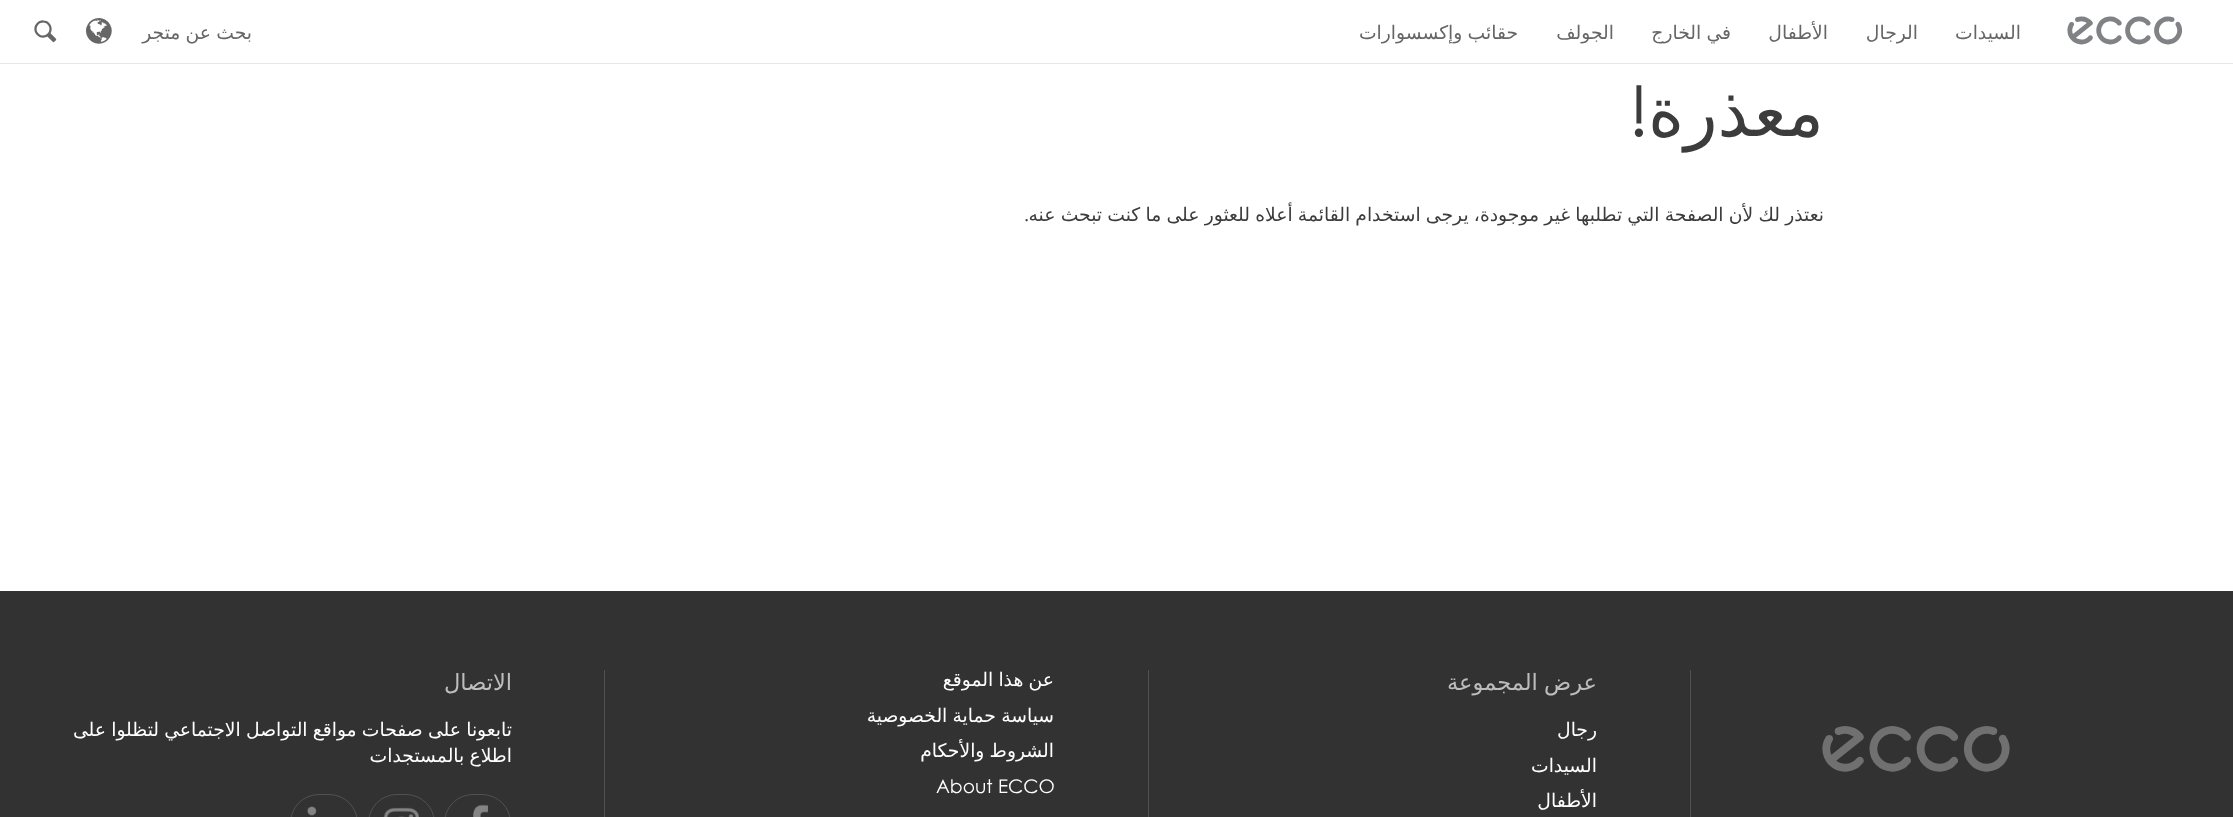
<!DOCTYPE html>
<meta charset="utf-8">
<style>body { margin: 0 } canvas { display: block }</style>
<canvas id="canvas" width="2233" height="817"></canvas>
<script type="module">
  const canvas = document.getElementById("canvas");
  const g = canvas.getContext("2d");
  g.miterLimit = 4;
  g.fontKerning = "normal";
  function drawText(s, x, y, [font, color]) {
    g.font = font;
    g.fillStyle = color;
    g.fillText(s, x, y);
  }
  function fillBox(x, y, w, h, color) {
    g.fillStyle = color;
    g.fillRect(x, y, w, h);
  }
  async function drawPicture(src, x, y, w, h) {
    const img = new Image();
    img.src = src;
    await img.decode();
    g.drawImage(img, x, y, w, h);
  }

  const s1 = ["30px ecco", "#808285"];
  const s2 = ["18.75px DejaVu Sans", "#666666"];
  const s3 = ["30px ecco", "#666666"];
  const s4 = ["22.5px ecco", "#666666"];
  const s5 = ["69px DejaVu Sans", "#3C3C3C"];
  const s6 = ["69px Century Gothic", "#3C3C3C"];
  const s7 = ["18.75px DejaVu Sans", "#3C3C3C"];
  const s8 = ["18.75px Century Gothic", "#3C3C3C"];
  const s9 = ["49px ecco", "#707070"];
  const s10 = ["22.5px DejaVu Sans", "#BDBDBD"];
  const s11 = ["18.75px DejaVu Sans", "#FFFFFF"];
  const s12 = ["18.75px Century Gothic", "#FFFFFF"];

  fillBox(0, 0, 2233, 817, "#FFFFFF");
  g.fillStyle = "#E6E6E6";
  g.beginPath();
  g.moveTo(0, 62);
  g.lineTo(0, 64);
  g.lineTo(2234, 64);
  g.lineTo(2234, 1);
  g.lineTo(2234, 62);
  g.closePath();
  g.fill();
  fillBox(0, 62, 2233, 1, "#FFFFFF");
  drawText("!", 2066, 44, s1);
  g.direction = "rtl";
  drawText("السيدات", 2021, 39, s2);
  drawText("الرجال", 1918, 39, s2);
  drawText("الأطفال", 1828, 39, s2);
  g.wordSpacing = "-0.75px";
  drawText("في الخارج", 1731, 39, s2);
  g.wordSpacing = "0px";
  drawText("الجولف", 1614, 39, s2);
  g.wordSpacing = "-0.75px";
  drawText("حقائب وإكسسوارات", 1518, 39, s2);
  drawText("بحث عن متجر", 252, 39, s2);
  g.wordSpacing = "0px";
  g.direction = "ltr";
  drawText("%", 86, 44, s3);
  drawText("#", 34, 41, s4);
  g.direction = "rtl";
  drawText("معذرة", 1824, 136, s5);
  drawText("!", 1649, 136, s6);
  g.wordSpacing = "-0.75px";
  drawText("نعتذر لك لأن الصفحة التي تطلبها غير موجودة، يرجى استخدام القائمة أعلاه للعثور على ما كنت تبحث عنه", 1824, 221, s7);
  g.wordSpacing = "0px";
  drawText(".", 1029, 221, s8);
  fillBox(0, 591, 2233, 226, "#323232");
  fillBox(1690, 670, 1, 147, "#515151");
  fillBox(1148, 670, 1, 147, "#515151");
  fillBox(604, 670, 1, 147, "#515151");
  g.direction = "ltr";
  drawText("!", 1820, 771, s9);
  g.wordSpacing = "-1px";
  g.direction = "rtl";
  drawText("عرض المجموعة", 1597, 690, s10);
  g.wordSpacing = "0px";
  drawText("رجال", 1597, 736, s11);
  drawText("السيدات", 1597, 772, s11);
  drawText("الأطفال", 1597, 807, s11);
  g.wordSpacing = "-0.75px";
  drawText("عن هذا الموقع", 1054, 686, s11);
  drawText("سياسة حماية الخصوصية", 1054, 722, s11);
  drawText("الشروط والأحكام", 1054, 757, s11);
  g.wordSpacing = "0px";
  g.direction = "ltr";
  drawText("About ECCO", 936, 793, s12);
  g.direction = "rtl";
  drawText("الاتصال", 512, 690, s10);
  g.wordSpacing = "-0.75px";
  drawText("تابعونا على صفحات مواقع التواصل الاجتماعي لتظلوا على", 512, 736, s11);
  drawText("اطلاع بالمستجدات", 512, 762, s11);
  g.beginPath();
  g.roundRect(444.5, 794.5, 66, 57, 33);
  g.strokeStyle = "#515151";
  g.stroke();
  await drawPicture("pic1.png", 473, 804, 15, 13);
  g.beginPath();
  g.roundRect(368.5, 794.5, 66, 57, 33);
  g.stroke();
  await drawPicture("pic2.png", 383, 807, 36, 10);
  g.beginPath();
  g.roundRect(290.5, 794.5, 67, 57, 33);
  g.stroke();
  await drawPicture("pic3.png", 307, 806, 10, 10);
</script>
